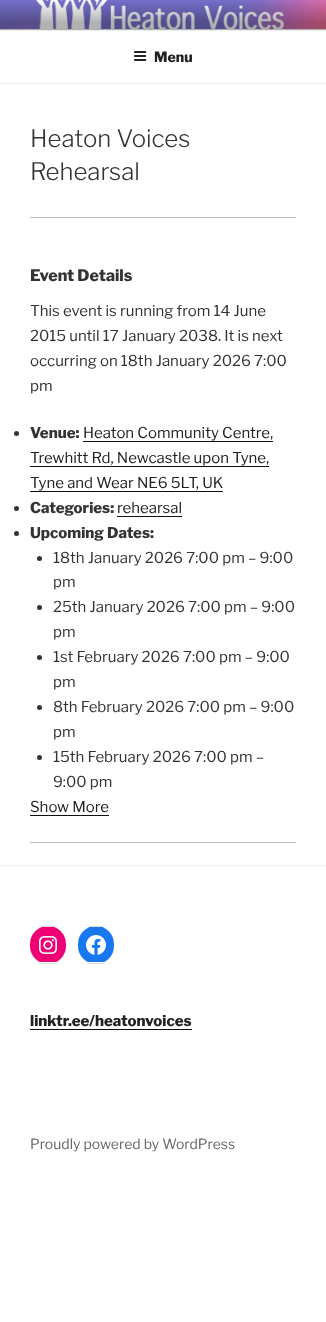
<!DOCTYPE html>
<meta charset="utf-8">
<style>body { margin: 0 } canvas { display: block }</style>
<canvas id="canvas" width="326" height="1322"></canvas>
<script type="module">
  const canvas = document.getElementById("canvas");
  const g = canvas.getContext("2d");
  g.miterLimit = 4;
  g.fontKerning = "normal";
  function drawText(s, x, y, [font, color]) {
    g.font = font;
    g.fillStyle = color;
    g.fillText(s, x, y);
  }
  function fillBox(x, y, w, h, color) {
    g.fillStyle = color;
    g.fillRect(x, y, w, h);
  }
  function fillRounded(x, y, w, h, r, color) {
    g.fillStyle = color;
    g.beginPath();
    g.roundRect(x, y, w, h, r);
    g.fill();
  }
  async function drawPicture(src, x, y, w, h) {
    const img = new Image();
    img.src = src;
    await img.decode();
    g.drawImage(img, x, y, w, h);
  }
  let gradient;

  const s1 = ["100 14px Libre Franklin", "#222222"];
  const s2 = ["100 24px 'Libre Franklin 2'", "#333333"];
  const s3 = ["100 16px Libre Franklin", "#333333"];
  const s4 = ["100 15px 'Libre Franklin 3'", "#333333"];
  const s5 = ["100 15px Libre Franklin", "#333333"];
  const s6 = ["100 15px 'Libre Franklin 3'", "#222222"];
  const s7 = ["100 15px Libre Franklin", "#222222"];
  const s8 = ["100 14px 'Libre Franklin 3'", "#666666"];

  fillBox(0, 0, 326, 1322, "#FFFFFF");
  fillBox(0, 29, 326, 1, "#FAFAFA");
  await drawPicture("pic1.png", 0, 0, 326, 29);
  gradient = g.createLinearGradient(163, 0, 163, 30);
  gradient.addColorStop(0, "rgba(0, 0, 0, 0)");
  gradient.addColorStop(0.75, "rgba(0, 0, 0, 0.3)");
  gradient.addColorStop(1, "rgba(0, 0, 0, 0.3)");
  g.fillStyle = gradient;
  g.fillRect(0, 2, 326, 28);
  fillBox(0, 30, 326, 1, "#EEEEEE");
  fillBox(0, 83, 326, 1, "#EEEEEE");
  await drawPicture("pic2.png", 134, 51, 13, 10);
  drawText("Menu", 154, 62, s1);
  drawText("Heaton Voices", 30, 147, s2);
  drawText("Rehearsal", 30, 180, s2);
  fillBox(30, 217, 266, 1, "#BBBBBB");
  drawText("Event Details", 30, 281, s3);
  drawText("This event is running from 14 June", 30, 316, s4);
  drawText("2015 until 17 January 2038. It is next", 30, 341, s4);
  drawText("occurring on 18th January 2026 7:00", 30, 366, s4);
  drawText("pm", 30, 391, s4);
  g.beginPath();
  g.arc(16.5, 433.5, 2.5, 0, Math.PI * 2);
  g.fill();
  drawText("Venue:", 30, 438, s5);
  drawText("Heaton Community Centre,", 83, 438, s6);
  fillBox(83, 441, 190, 1, "#0F0F0F");
  drawText("Trewhitt Rd, Newcastle upon Tyne,", 30, 463, s6);
  fillBox(30, 466, 239, 1, "#0F0F0F");
  drawText("Tyne and Wear NE6 5LT, UK", 30, 488, s6);
  fillBox(30, 491, 193, 1, "#0F0F0F");
  g.fillStyle = "#333333";
  g.beginPath();
  g.arc(16.5, 508.5, 2.5, 0, Math.PI * 2);
  g.fill();
  drawText("Categories:", 30, 513, s5);
  drawText("rehearsal", 117, 513, s6);
  fillBox(117, 516, 65, 1, "#0F0F0F");
  g.fillStyle = "#333333";
  g.beginPath();
  g.arc(16.5, 533.5, 2.5, 0, Math.PI * 2);
  g.fill();
  drawText("Upcoming Dates:", 30, 538, s5);
  g.beginPath();
  g.arc(39.5, 558.5, 2.5, 0, Math.PI * 2);
  g.fill();
  drawText("18th January 2026 7:00 pm – 9:00", 53, 563, s4);
  drawText("pm", 53, 587, s4);
  g.beginPath();
  g.arc(39.5, 607.5, 2.5, 0, Math.PI * 2);
  g.fill();
  drawText("25th January 2026 7:00 pm – 9:00", 53, 612, s4);
  drawText("pm", 53, 637, s4);
  g.beginPath();
  g.arc(39.5, 657.5, 2.5, 0, Math.PI * 2);
  g.fill();
  drawText("1st February 2026 7:00 pm – 9:00", 53, 662, s4);
  drawText("pm", 53, 687, s4);
  g.beginPath();
  g.arc(39.5, 707.5, 2.5, 0, Math.PI * 2);
  g.fill();
  drawText("8th February 2026 7:00 pm – 9:00", 53, 712, s4);
  drawText("pm", 53, 737, s4);
  g.beginPath();
  g.arc(39.5, 757.5, 2.5, 0, Math.PI * 2);
  g.fill();
  drawText("15th February 2026 7:00 pm –", 53, 762, s4);
  drawText("9:00 pm", 53, 787, s4);
  drawText("Show More", 30, 812, s6);
  fillBox(30, 815, 79, 1, "#0F0F0F");
  fillBox(30, 842, 266, 1, "#BBBBBB");
  fillBox(0, 865, 326, 1, "#EEEEEE");
  fillRounded(30, 926, 36, 38, 18, "#F00075");
  fillBox(39, 926, 18, 1, "#DDDDDD");
  fillBox(39, 963, 18, 1, "#DDDDDD");
  fillBox(39, 962, 17, 1, "#FFFFFF");
  await drawPicture("pic3.png", 39, 936, 18, 18);
  fillRounded(78, 926, 36, 38, 18, "#1778F2");
  fillBox(87, 926, 18, 1, "#DDDDDD");
  fillBox(87, 963, 18, 1, "#DDDDDD");
  fillBox(87, 962, 17, 1, "#FFFFFF");
  await drawPicture("pic4.png", 86, 935, 20, 20);
  drawText("linktr.ee/heatonvoices", 30, 1026, s7);
  fillBox(30, 1029, 162, 1, "#0F0F0F");
  drawText("Proudly powered by WordPress", 30, 1149, s8);
</script>
